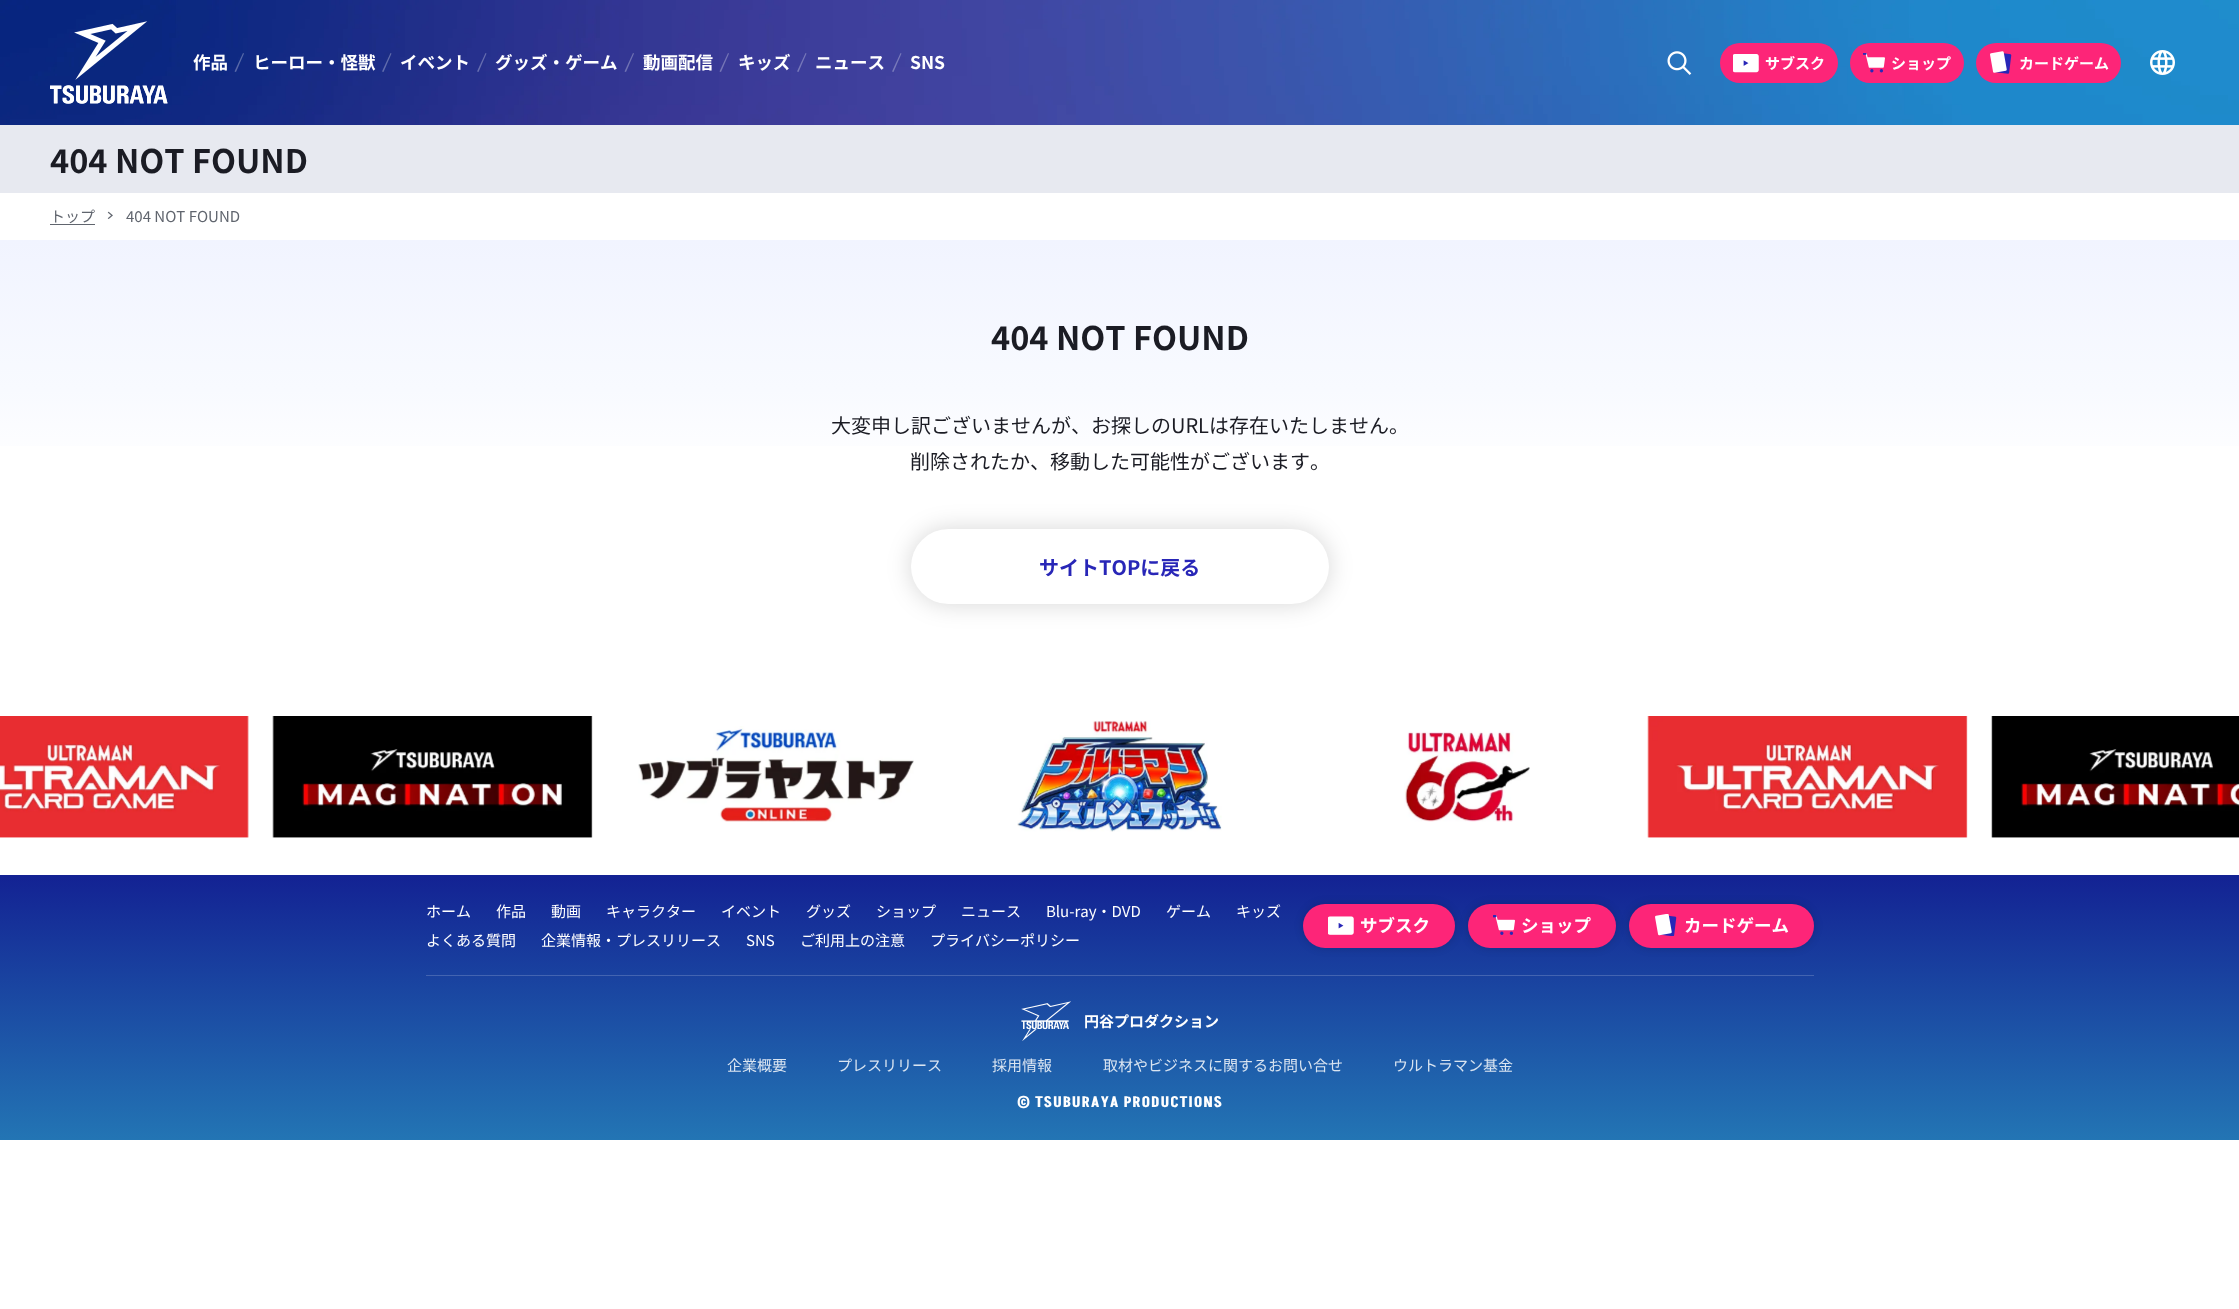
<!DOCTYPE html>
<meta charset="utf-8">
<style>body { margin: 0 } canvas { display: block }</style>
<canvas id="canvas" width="2239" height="1309"></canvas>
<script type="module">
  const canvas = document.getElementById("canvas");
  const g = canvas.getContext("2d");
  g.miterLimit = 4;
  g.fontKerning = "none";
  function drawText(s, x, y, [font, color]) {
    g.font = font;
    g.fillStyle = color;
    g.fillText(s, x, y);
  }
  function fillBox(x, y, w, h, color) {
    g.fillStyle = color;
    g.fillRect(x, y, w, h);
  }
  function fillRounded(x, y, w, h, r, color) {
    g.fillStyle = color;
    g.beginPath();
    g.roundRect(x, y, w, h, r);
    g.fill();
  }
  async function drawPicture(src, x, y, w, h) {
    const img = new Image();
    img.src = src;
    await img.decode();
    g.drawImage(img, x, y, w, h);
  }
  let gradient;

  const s1 = ["bold 17.5px Noto Sans JP", "#FFFFFF"];
  const s2 = ["bold 15px Noto Sans JP", "#FFFFFF"];
  const s3 = ["bold 32.5px Noto Sans JP", "#1B1C24"];
  const s4 = ["15px Noto Sans JP", "#60656E"];
  const s5 = ["20px Noto Sans JP", "#1B1C24"];
  const s6 = ["bold 20px Noto Sans JP", "#2826B7"];
  const s7 = ["15px Noto Sans JP", "#FFFFFF"];
  const s8 = ["15px Noto Sans JP", "#D9E4F1"];
  const s9 = ["bold 15px Akshar", "#FFFFFF"];

  fillBox(0, 0, 2239, 1309, "#FFFFFF");
  await drawPicture("pic1.png", 0, 0, 2239, 125);
  await drawPicture("pic2.png", 50, 21, 118, 83);
  drawText("作品", 193, 69, s1);
  g.fillStyle = "rgba(255, 255, 255, 0.3)";
  g.beginPath();
  g.moveTo(243, 53);
  g.lineTo(244, 53.5);
  g.lineTo(236, 72);
  g.lineTo(234.5, 71.5);
  g.closePath();
  g.fill();
  drawText("ヒーロー・怪獣", 253, 69, s1);
  g.fillStyle = "rgba(255, 255, 255, 0.3)";
  g.beginPath();
  g.moveTo(390.5, 53);
  g.lineTo(391.5, 53.5);
  g.lineTo(383.5, 72);
  g.lineTo(382, 71.5);
  g.closePath();
  g.fill();
  drawText("イベント", 400, 69, s1);
  g.fillStyle = "#676EAF";
  g.beginPath();
  g.moveTo(485.5, 53);
  g.lineTo(486.5, 53.5);
  g.lineTo(478.5, 72);
  g.lineTo(477, 71.5);
  g.closePath();
  g.fill();
  drawText("グッズ・ゲーム", 495, 69, s1);
  g.fillStyle = "#7072B3";
  g.beginPath();
  g.moveTo(633, 53);
  g.lineTo(634, 53.5);
  g.lineTo(626, 72);
  g.lineTo(624.5, 71.5);
  g.closePath();
  g.fill();
  drawText("動画配信", 643, 69, s1);
  g.fillStyle = "#7575B6";
  g.beginPath();
  g.moveTo(728, 53);
  g.lineTo(729, 53.5);
  g.lineTo(721, 72);
  g.lineTo(719.5, 71.5);
  g.closePath();
  g.fill();
  drawText("キッズ", 738, 69, s1);
  g.fillStyle = "#7778B9";
  g.beginPath();
  g.moveTo(805.5, 53);
  g.lineTo(806.5, 53.5);
  g.lineTo(798.5, 72);
  g.lineTo(797, 71.5);
  g.closePath();
  g.fill();
  drawText("ニュース", 815, 69, s1);
  g.fillStyle = "#797ABA";
  g.beginPath();
  g.moveTo(900.5, 53);
  g.lineTo(901.5, 53.5);
  g.lineTo(893.5, 72);
  g.lineTo(892, 71.5);
  g.closePath();
  g.fill();
  drawText("SNS", 910, 69, s1);
  await drawPicture("pic3.png", 1667, 51, 25, 24);
  fillRounded(1720, 43, 118, 40, 20, "#FD2578");
  await drawPicture("pic4.png", 1733, 54, 26, 19);
  drawText("サブスク", 1765, 69, s2);
  fillRounded(1850, 43, 114, 40, 20, "#FD2578");
  await drawPicture("pic5.png", 1863, 53, 22, 20);
  drawText("ショップ", 1891, 69, s2);
  fillRounded(1976, 43, 145, 40, 20, "#FD2578");
  await drawPicture("pic6.png", 1990, 51, 22, 23);
  drawText("カードゲーム", 2019, 69, s2);
  await drawPicture("pic7.png", 2150, 50, 25, 25);
  fillBox(0, 125, 2239, 68, "#E7E9F0");
  drawText("404 NOT FOUND", 50, 173, s3);
  drawText("トップ", 50, 222, s4);
  fillBox(50, 224, 45, 1, "#60656E");
  await drawPicture("pic8.png", 107, 211, 6, 8);
  drawText("404 NOT FOUND", 126, 222, s4);
  gradient = g.createLinearGradient(1120, 240, 1120, 679);
  gradient.addColorStop(0, "#F1F4FF");
  gradient.addColorStop(0.34, "#F8FAFF");
  gradient.addColorStop(0.54, "#FFFFFF");
  gradient.addColorStop(1, "#FFFFFF");
  g.fillStyle = gradient;
  g.fillRect(0, 240, 2239, 206);
  drawText("404 NOT FOUND", 991, 350, s3);
  drawText("大変申し訳ございませんが、お探しのURLは存在いたしません。", 831, 433, s5);
  drawText("削除されたか、移動した可能性がございます。", 910, 469, s5);
  g.fillStyle = "rgba(0, 0, 0, 0.16)";
  g.filter = "blur(12.5px)";
  g.beginPath();
  g.roundRect(911, 529, 418, 75, 37.5);
  g.fill();
  g.filter = "none";
  fillRounded(911, 529, 418, 75, 37.5, "#FFFFFF");
  drawText("サイトTOPに戻る", 1039, 575, s6);
  await drawPicture("pic9.png", 0, 716, 249, 122);
  await drawPicture("pic10.png", 272, 716, 321, 122);
  await drawPicture("pic11.png", 638, 726, 276, 96);
  await drawPicture("pic12.png", 1017, 720, 205, 112);
  await drawPicture("pic13.png", 1404, 730, 126, 92);
  await drawPicture("pic14.png", 1647, 716, 321, 122);
  await drawPicture("pic15.png", 1991, 716, 248, 122);
  gradient = g.createLinearGradient(1120, 875, 1120, 1140);
  gradient.addColorStop(0, "#132293");
  gradient.addColorStop(1, "#2375B4");
  g.fillStyle = gradient;
  g.fillRect(0, 875, 2239, 265);
  drawText("ホーム", 426, 917, s7);
  drawText("作品", 496, 917, s7);
  drawText("動画", 551, 917, s7);
  drawText("キャラクター", 606, 917, s7);
  drawText("イベント", 721, 917, s7);
  drawText("グッズ", 806, 917, s7);
  drawText("ショップ", 876, 917, s7);
  drawText("ニュース", 961, 917, s7);
  drawText("Blu-ray・DVD", 1046, 917, s7);
  drawText("ゲーム", 1166, 917, s7);
  drawText("キッズ", 1236, 917, s7);
  drawText("よくある質問", 426, 946, s7);
  drawText("企業情報・プレスリリース", 541, 946, s7);
  drawText("SNS", 746, 946, s7);
  drawText("ご利用上の注意", 800, 946, s7);
  drawText("プライバシーポリシー", 930, 946, s7);
  g.fillStyle = "rgba(0, 0, 0, 0.16)";
  g.filter = "blur(4px)";
  g.beginPath();
  g.roundRect(1303, 904, 152, 44, 22);
  g.fill();
  g.filter = "none";
  fillRounded(1303, 904, 152, 44, 22, "#FD2578");
  await drawPicture("pic16.png", 1328, 916, 26, 19);
  drawText("サブスク", 1360, 932, s1);
  g.fillStyle = "rgba(0, 0, 0, 0.16)";
  g.filter = "blur(4px)";
  g.beginPath();
  g.roundRect(1468, 904, 148, 44, 22);
  g.fill();
  g.filter = "none";
  fillRounded(1468, 904, 148, 44, 22, "#FD2578");
  await drawPicture("pic17.png", 1493, 915, 22, 20);
  drawText("ショップ", 1521, 932, s1);
  g.fillStyle = "rgba(0, 0, 0, 0.16)";
  g.filter = "blur(4px)";
  g.beginPath();
  g.roundRect(1629, 904, 185, 44, 22);
  g.fill();
  g.filter = "none";
  fillRounded(1629, 904, 185, 44, 22, "#FD2578");
  await drawPicture("pic18.png", 1655, 914, 22, 22);
  drawText("カードゲーム", 1684, 932, s1);
  fillBox(426, 975, 1388, 1, "#4364B1");
  await drawPicture("pic19.png", 1021, 1001, 50, 40);
  drawText("円谷プロダクション", 1084, 1027, s2);
  drawText("企業概要", 727, 1071, s8);
  drawText("プレスリリース", 837, 1071, s8);
  drawText("採用情報", 992, 1071, s8);
  drawText("取材やビジネスに関するお問い合せ", 1103, 1071, s8);
  drawText("ウルトラマン基金", 1393, 1071, s8);
  g.letterSpacing = "0.9px";
  drawText("© TSUBURAYA PRODUCTIONS", 1017, 1107, s9);
</script>
